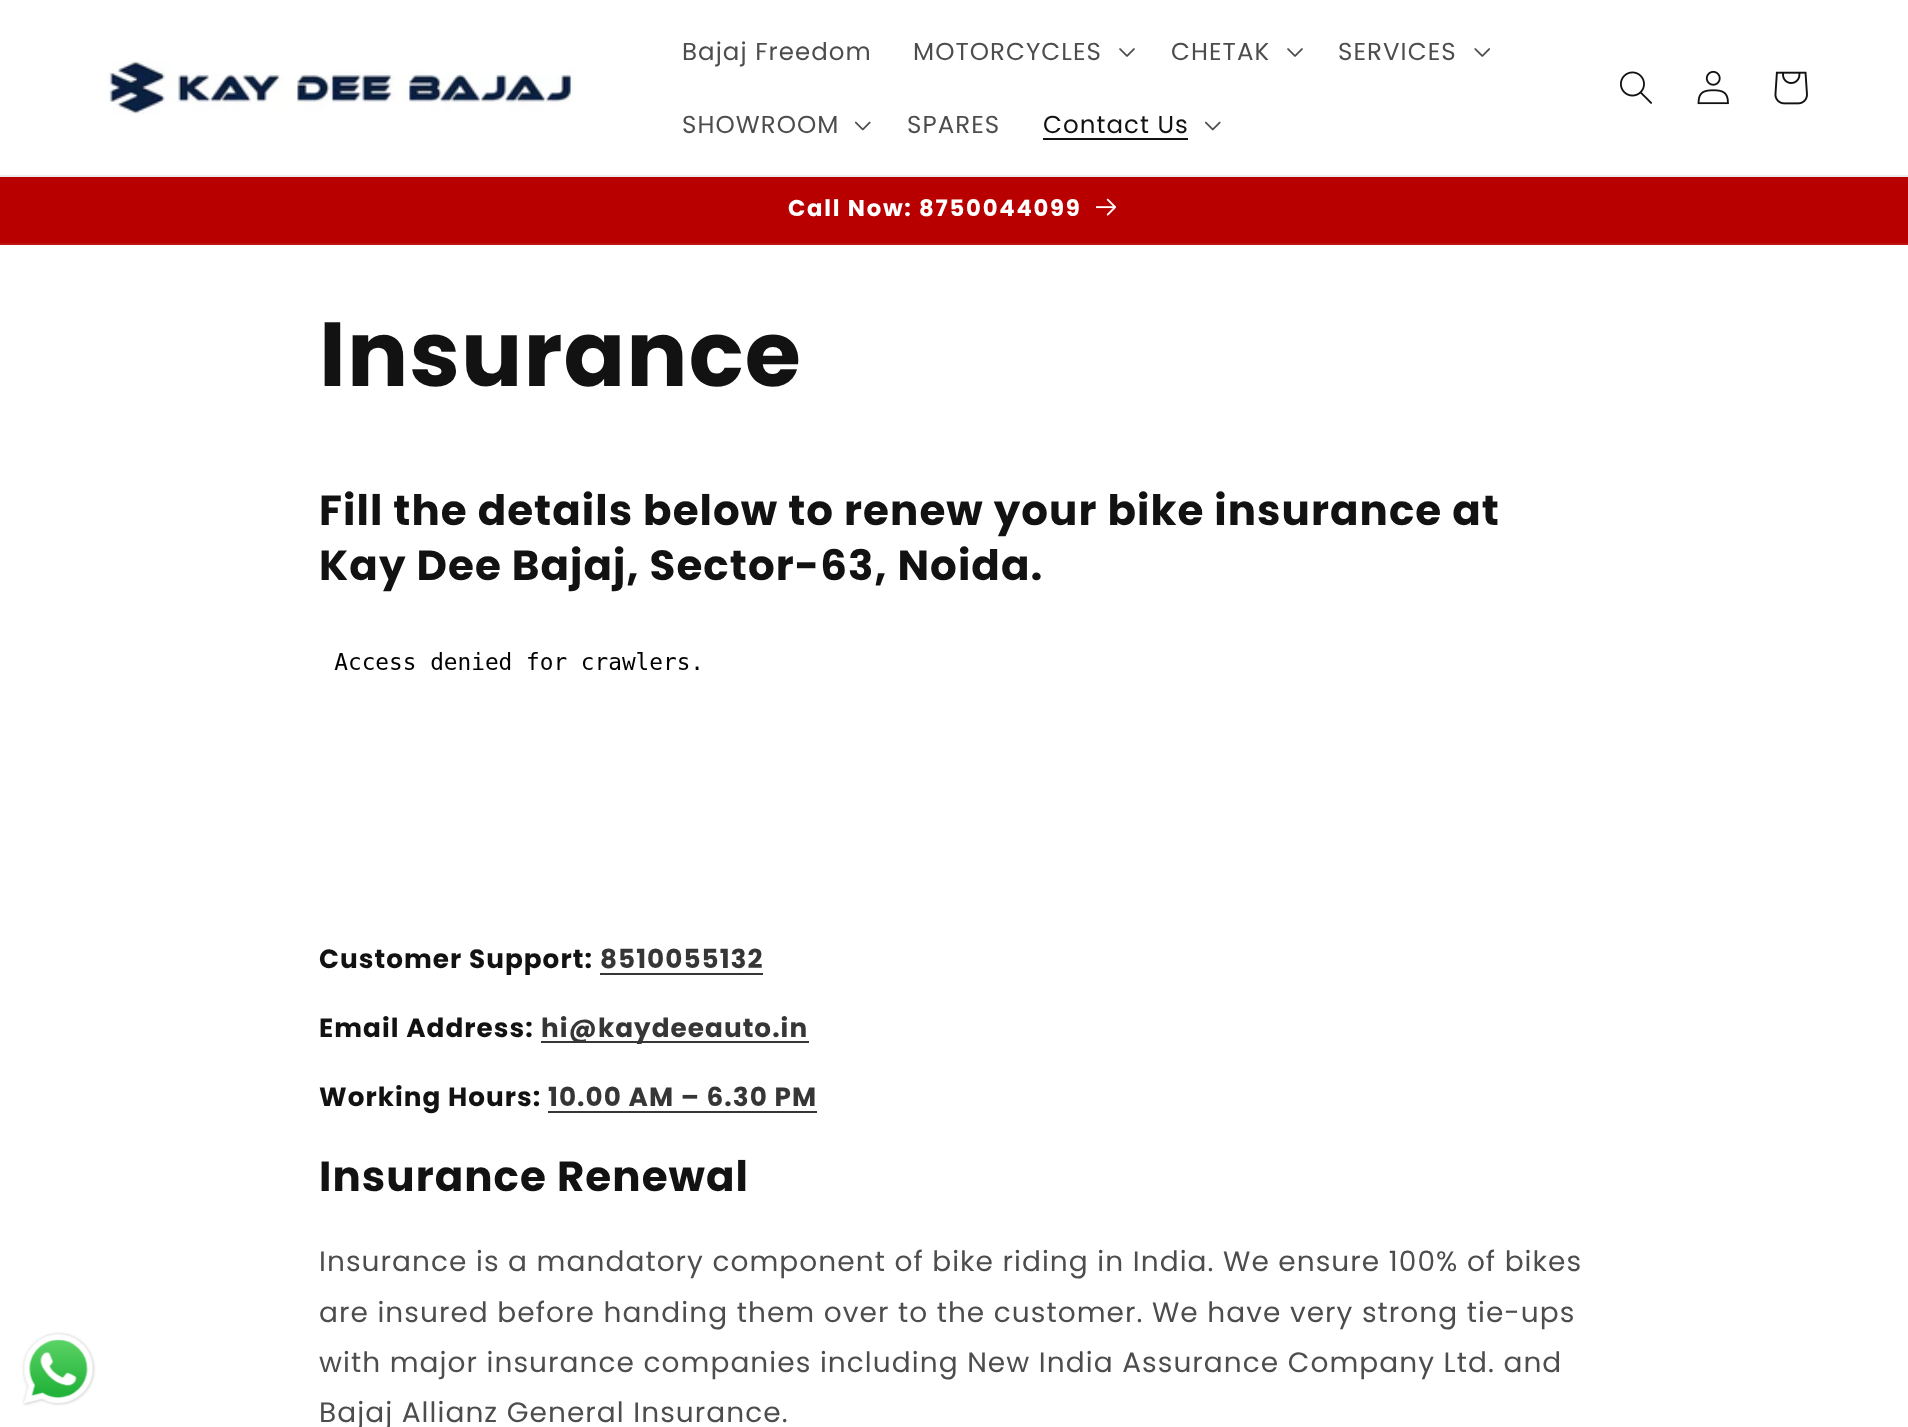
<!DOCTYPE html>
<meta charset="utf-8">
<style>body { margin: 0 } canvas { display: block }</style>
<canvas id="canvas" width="1908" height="1427"></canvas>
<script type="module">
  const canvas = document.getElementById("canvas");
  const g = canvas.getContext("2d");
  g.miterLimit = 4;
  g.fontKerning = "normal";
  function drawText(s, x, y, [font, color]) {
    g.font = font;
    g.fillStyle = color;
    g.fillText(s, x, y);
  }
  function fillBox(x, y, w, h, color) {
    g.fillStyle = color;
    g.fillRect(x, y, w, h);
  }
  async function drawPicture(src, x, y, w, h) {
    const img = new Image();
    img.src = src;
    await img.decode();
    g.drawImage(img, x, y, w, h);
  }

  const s1 = ["24.5px Poppins", "#4D4D4D"];
  const s2 = ["24.5px Poppins", "#121212"];
  const s3 = ["bold 22.75px Poppins", "#FFFFFF"];
  const s4 = ["bold 91px Poppins", "#121212"];
  const s5 = ["bold 42px Poppins", "#121212"];
  const s6 = ["bold 26.25px Poppins", "#121212"];
  const s7 = ["bold 26.25px Poppins", "#363636"];
  const s8 = ["28px Poppins", "#4D4D4D"];

  fillBox(0, 0, 1908, 1427, "#FFFFFF");
  fillBox(0, 175, 1908, 2, "#ECECEC");
  await drawPicture("pic1.png", 106, 61, 471, 53);
  g.letterSpacing = "1.05px";
  drawText("Bajaj Freedom", 682, 60, s1);
  drawText("MOTORCYCLES", 913, 60, s1);
  await drawPicture("pic2.png", 1119, 48, 16, 9);
  drawText("CHETAK", 1171, 60, s1);
  await drawPicture("pic2.png", 1287, 48, 16, 9);
  drawText("SERVICES", 1338, 60, s1);
  await drawPicture("pic3.png", 1474, 48, 16, 9);
  drawText("SHOWROOM", 682, 133, s1);
  await drawPicture("pic4.png", 854, 121, 17, 10);
  drawText("SPARES", 907, 133, s1);
  drawText("Contact Us", 1043, 133, s2);
  fillBox(1043, 138, 145, 2, "#121212");
  await drawPicture("pic4.png", 1204, 121, 17, 10);
  await drawPicture("pic5.png", 1620, 71, 32, 33);
  await drawPicture("pic6.png", 1697, 70, 32, 35);
  await drawPicture("pic7.png", 1774, 71, 34, 34);
  fillBox(0, 177, 1908, 66, "#B90000");
  fillBox(0, 243, 1908, 2, "#BF1414");
  g.letterSpacing = "1.75px";
  drawText("Call Now: 8750044099", 788, 216, s3);
  await drawPicture("pic8.png", 1096, 198, 21, 18);
  await drawPicture("pic9.png", 22, 1332, 74, 74);
  g.letterSpacing = "1.05px";
  drawText("Insurance", 319, 386, s4);
  drawText("Fill the details below to renew your bike insurance at", 319, 525, s5);
  drawText("Kay Dee Bajaj, Sector-63, Noida.", 319, 580, s5);
  await drawPicture("pic10.png", 334, 652, 365, 18);
  drawText("Customer Support:", 319, 968, s6);
  drawText("8510055132", 600, 968, s7);
  fillBox(600, 973, 163, 2, "#363636");
  drawText("Email Address:", 319, 1037, s6);
  fillBox(541, 1041, 268, 2, "#363636");
  drawText("hi@kaydeeauto.in", 541, 1037, s7);
  drawText("Working Hours:", 319, 1106, s6);
  drawText("10.00 AM – 6.30 PM", 548, 1106, s7);
  fillBox(548, 1111, 269, 2, "#363636");
  drawText("Insurance Renewal", 319, 1191, s5);
  drawText("Insurance is a mandatory component of bike riding in India. We ensure 100% of bikes", 319, 1271, s8);
  drawText("are insured before handing them over to the customer. We have very strong tie-ups", 319, 1322, s8);
  drawText("with major insurance companies including New India Assurance Company Ltd. and", 319, 1372, s8);
  drawText("Bajaj Allianz General Insurance.", 319, 1422, s8);
</script>
